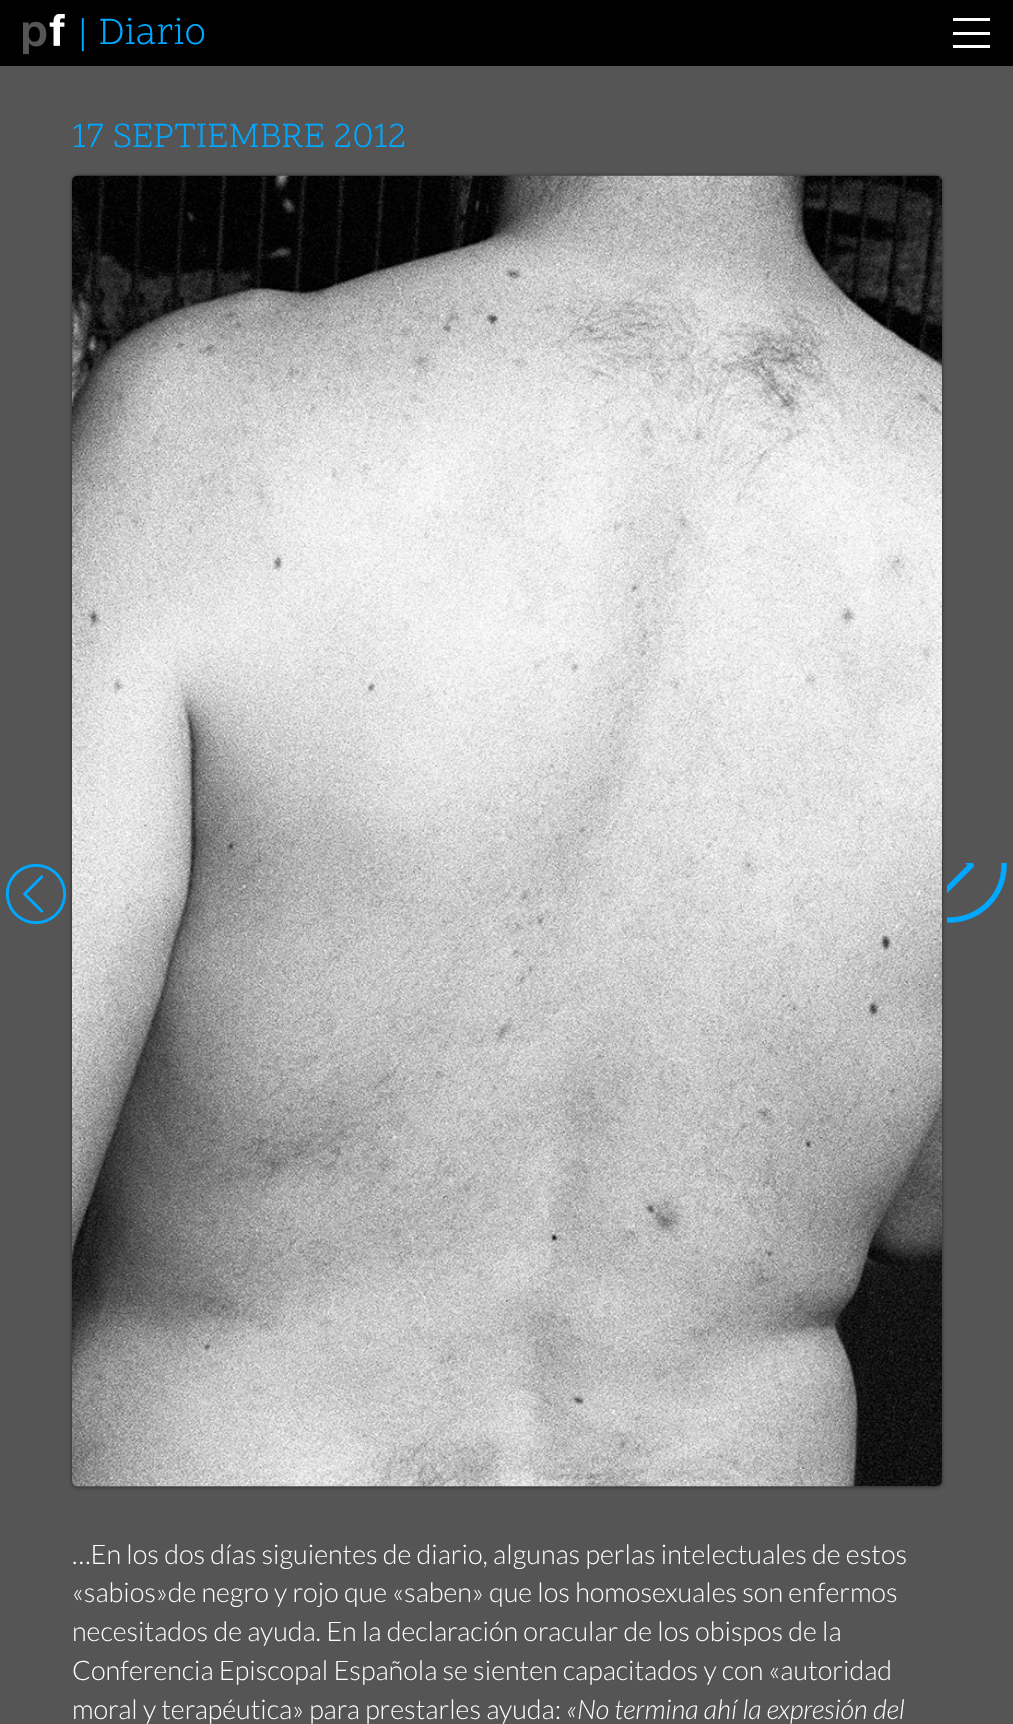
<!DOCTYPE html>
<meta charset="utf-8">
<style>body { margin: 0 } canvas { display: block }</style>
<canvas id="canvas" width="1013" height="1724"></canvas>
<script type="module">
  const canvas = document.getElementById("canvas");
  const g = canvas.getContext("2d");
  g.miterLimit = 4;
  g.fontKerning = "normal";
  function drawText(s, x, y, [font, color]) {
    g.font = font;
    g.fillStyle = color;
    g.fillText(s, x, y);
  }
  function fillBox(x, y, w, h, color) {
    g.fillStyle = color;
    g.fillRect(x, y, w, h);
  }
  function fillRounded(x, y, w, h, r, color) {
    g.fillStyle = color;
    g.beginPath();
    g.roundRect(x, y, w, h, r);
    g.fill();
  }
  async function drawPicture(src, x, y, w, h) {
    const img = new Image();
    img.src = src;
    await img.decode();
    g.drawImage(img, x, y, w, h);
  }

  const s1 = ["39px Scope One", "#00A8FF"];
  const s2 = ["36px Scope One", "#00A8FF"];
  const s3 = ["300 18px Lato", "#B5B5B5"];
  const s4 = ["300 27px Lato", "#FFFFFF"];
  const s5 = ["italic 300 27px Lato", "#FFFFFF"];

  fillBox(0, 0, 1013, 1724, "#555555");
  fillBox(0, 0, 1013, 66, "#000000");
  await drawPicture("pic1.png", 23, 14, 42, 41);
  drawText("| Diario", 77, 44, s1);
  fillBox(953, 18, 37, 3, "#FFFFFF");
  fillBox(953, 32, 37, 3, "#FFFFFF");
  fillBox(953, 45, 37, 3, "#FFFFFF");
  drawText("17 SEPTIEMBRE 2012", 72, 147, s2);
  g.fillStyle = "rgba(0, 0, 0, 0.5)";
  g.filter = "blur(2px)";
  g.beginPath();
  g.roundRect(72, 176, 870, 1311, 6);
  g.fill();
  g.filter = "none";
  fillRounded(72, 176, 870, 1311, 6, "#4A4A4A");
  await drawPicture("pic2.png", 72, 175, 870, 1312);
  drawText("©", 84, 1469, s3);
  drawText("…En los dos días siguientes de diario, algunas perlas intelectuales de estos", 72, 1564, s4);
  drawText("«sabios»de negro y rojo que «saben» que los homosexuales son enfermos", 72, 1602, s4);
  drawText("necesitados de ayuda. En la declaración oracular de los obispos de la", 72, 1641, s4);
  drawText("Conferencia Episcopal Española se sienten capacitados y con «autoridad", 72, 1680, s4);
  drawText("moral y terapéutica» para prestarles ayuda:", 72, 1719, s4);
  drawText("«No termina ahí la expresión del", 566, 1719, s5);
  await drawPicture("pic3.png", 5, 863, 62, 62);
  await drawPicture("pic4.png", 947, 863, 60, 60);
</script>
